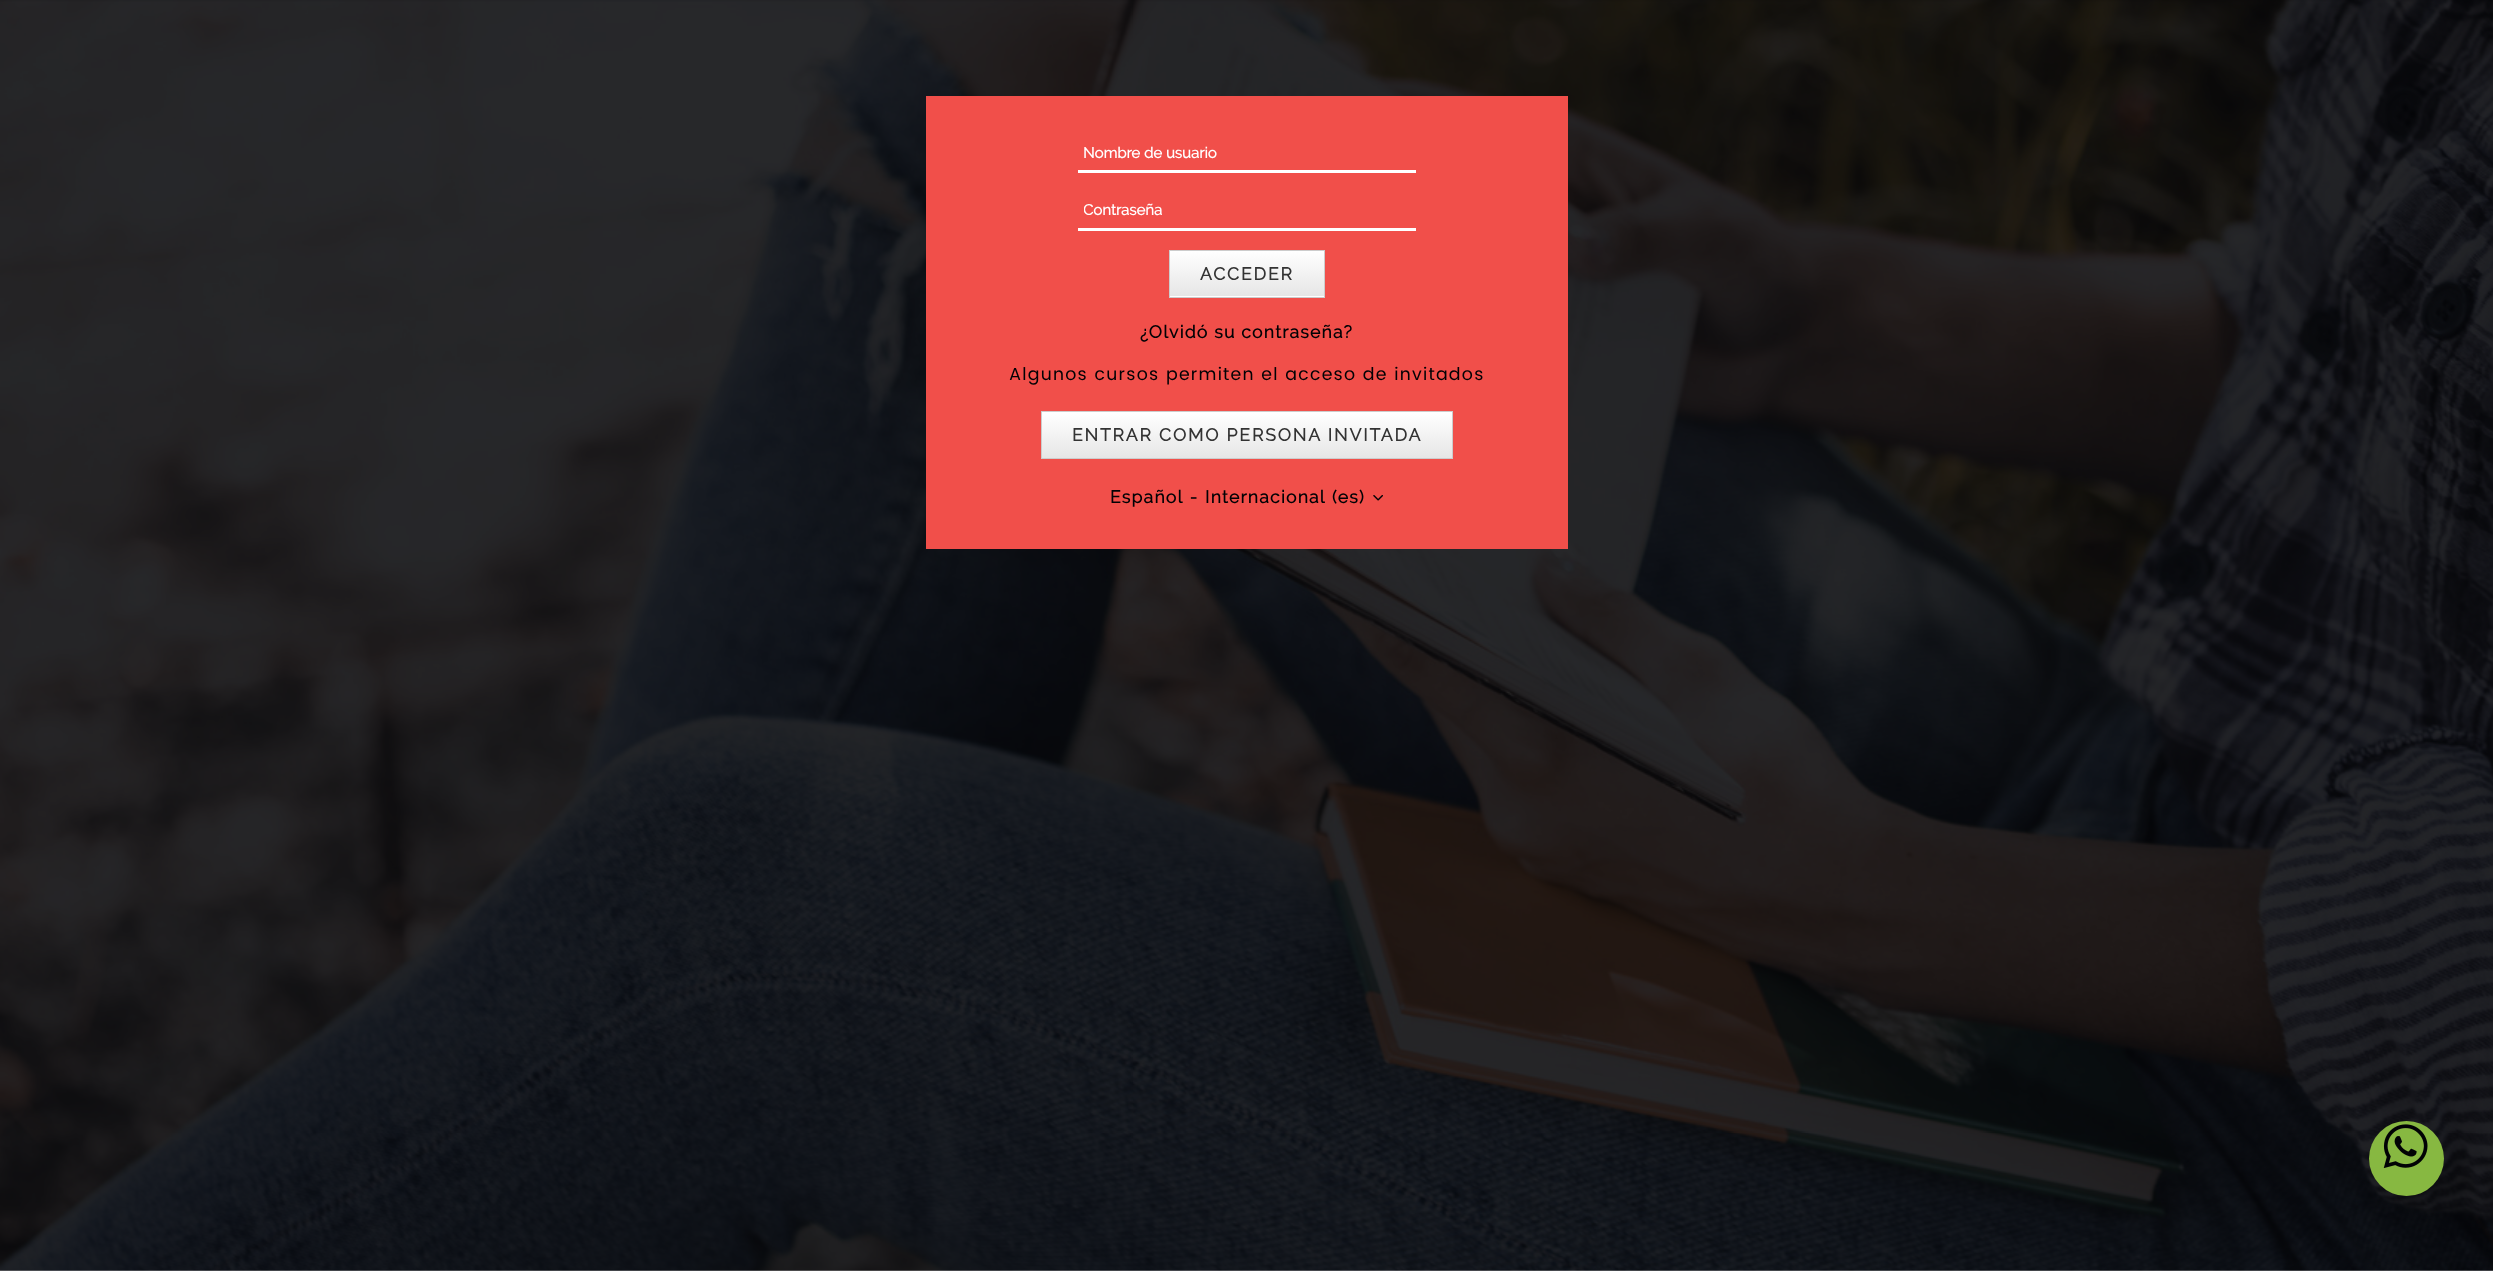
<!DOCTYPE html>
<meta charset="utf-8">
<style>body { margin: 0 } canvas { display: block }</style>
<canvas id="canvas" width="2493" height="1271"></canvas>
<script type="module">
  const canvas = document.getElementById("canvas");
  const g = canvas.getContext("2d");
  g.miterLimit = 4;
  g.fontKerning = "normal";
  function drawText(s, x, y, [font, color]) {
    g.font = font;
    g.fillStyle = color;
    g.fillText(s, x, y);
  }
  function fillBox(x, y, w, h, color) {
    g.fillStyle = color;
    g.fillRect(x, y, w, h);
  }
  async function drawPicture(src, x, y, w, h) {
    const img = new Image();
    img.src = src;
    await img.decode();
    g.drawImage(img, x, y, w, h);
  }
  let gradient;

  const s1 = ["bold 15px Raleway", "#FFFFFF"];
  const s2 = ["bold 17.5px Raleway", "#333333"];
  const s3 = ["bold 17.5px Raleway", "#010205"];
  const s4 = ["17.5px Poppins", "#010205"];

  fillBox(0, 0, 2493, 1271, "#FFFFFF");
  await drawPicture("pic1.png", 0, 0, 2493, 1271);
  fillBox(926, 96, 642, 453, "#F14F4A");
  fillBox(1078, 170, 338, 3, "#FFFFFF");
  drawText("Nombre de usuario", 1083, 158, s1);
  fillBox(1078, 228, 338, 3, "#FFFFFF");
  g.save();
  g.beginPath();
  g.rect(1084, 201, 312, 18);
  g.clip();
  drawText("Contraseña", 1083, 215, s1);
  g.restore();
  fillBox(1170, 296, 154, 1, "#FFFFFF");
  gradient = g.createLinearGradient(1247, 251, 1247, 296);
  gradient.addColorStop(0, "#FFFFFF");
  gradient.addColorStop(1, "#E6E6E6");
  g.fillStyle = gradient;
  g.fillRect(1170, 251, 154, 45);
  g.strokeStyle = "#CCCCCC";
  g.strokeRect(1169.5, 250.5, 155, 47);
  g.letterSpacing = "1.9px";
  drawText("ACCEDER", 1200, 280, s2);
  g.letterSpacing = "1.25px";
  drawText("¿Olvidó su contraseña?", 1140, 338, s3);
  drawText("Algunos cursos permiten el acceso de invitados", 1009, 380, s4);
  fillBox(1042, 412, 410, 1, "#FFFFFF");
  gradient = g.createLinearGradient(1247, 413, 1247, 458);
  gradient.addColorStop(0, "#FFFFFF");
  gradient.addColorStop(1, "#E6E6E6");
  g.fillStyle = gradient;
  g.fillRect(1042, 413, 410, 45);
  g.strokeRect(1041.5, 411.5, 411, 47);
  g.letterSpacing = "1.9px";
  drawText("ENTRAR COMO PERSONA INVITADA", 1072, 441, s2);
  g.letterSpacing = "1.25px";
  g.wordSpacing = "1px";
  drawText("Español - Internacional (es)", 1110, 503, s3);
  await drawPicture("pic2.png", 1373, 495, 10, 6);
  g.fillStyle = "#87B841";
  g.beginPath();
  g.arc(2406.5, 1158.5, 37.5, 0, Math.PI * 2);
  g.fill();
  await drawPicture("pic3.png", 2383, 1124, 45, 44);
</script>
